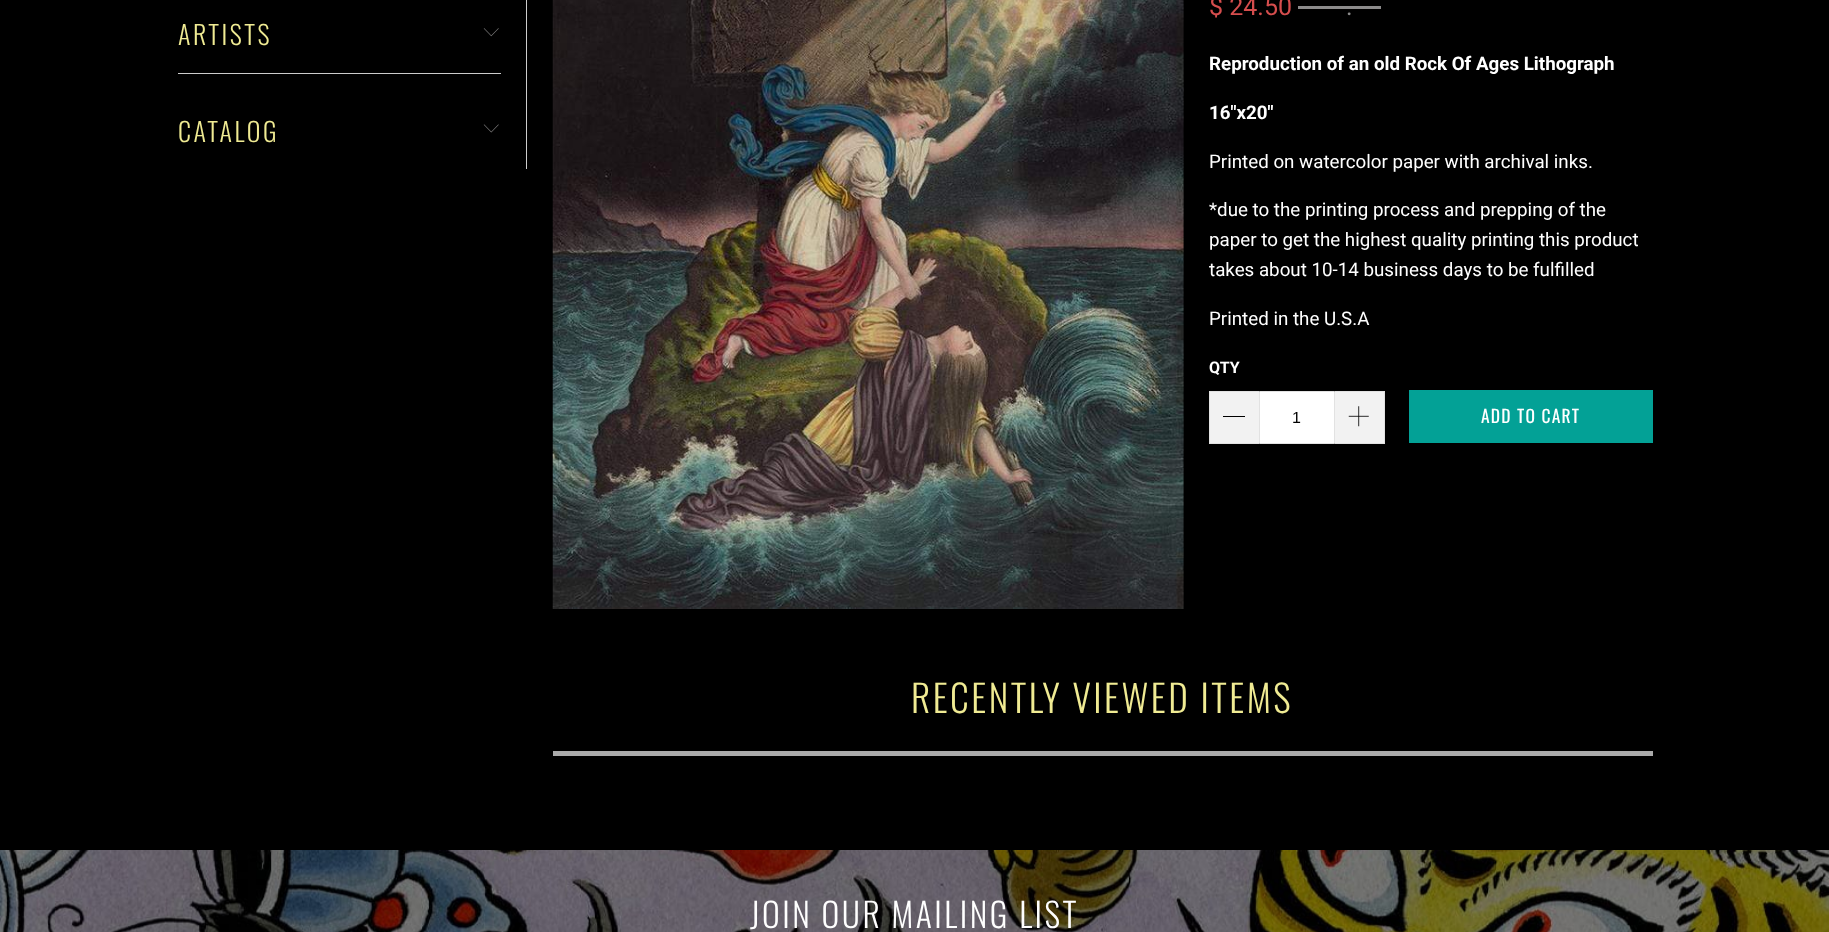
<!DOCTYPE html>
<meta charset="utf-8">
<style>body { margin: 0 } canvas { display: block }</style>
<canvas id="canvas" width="1829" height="932"></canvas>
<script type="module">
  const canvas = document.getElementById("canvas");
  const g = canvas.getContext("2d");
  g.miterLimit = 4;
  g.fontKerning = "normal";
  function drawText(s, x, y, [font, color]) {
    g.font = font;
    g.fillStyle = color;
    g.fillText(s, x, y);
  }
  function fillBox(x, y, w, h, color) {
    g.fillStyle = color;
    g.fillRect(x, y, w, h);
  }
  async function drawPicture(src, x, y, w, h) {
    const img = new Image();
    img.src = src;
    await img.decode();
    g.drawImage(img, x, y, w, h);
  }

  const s1 = ["300 26px Oswald", "#F0EB93"];
  const s2 = ["25px Roboto", "#D54D4D"];
  const s3 = ["25px Roboto", "#8C8B8B"];
  const s4 = ["bold 18.75px Roboto", "#FFFFFF"];
  const s5 = ["18.75px Roboto", "#FFFFFF"];
  const s6 = ["bold 16px Roboto", "#FFFFFF"];
  const s7 = ["16px Liberation Sans", "#000000"];
  const s8 = ["17.5px Oswald", "#FFFFFF"];
  const s9 = ["300 37.5px Oswald", "#F0EB93"];
  const s10 = ["300 33.75px Oswald", "#FFFFFF"];

  fillBox(0, 0, 1829, 932, "#000000");
  fillBox(526, 0, 1, 169, "#CCCCCC");
  fillBox(178, 73, 323, 1, "#CCCCCC");
  g.letterSpacing = "2.5px";
  drawText("ARTISTS", 178, 45, s1);
  await drawPicture("pic1.png", 483, 28, 16, 9);
  drawText("CATALOG", 178, 142, s1);
  await drawPicture("pic2.png", 483, 124, 16, 9);
  await drawPicture("pic3.png", 552, 0, 632, 609);
  g.letterSpacing = "0px";
  drawText("$ 24.50", 1209, 15, s2);
  drawText(".", 1346, 15, s3);
  fillBox(1298, 6, 83, 3, "#8C8B8B");
  drawText("Reproduction of an old Rock Of Ages Lithograph", 1209, 70, s4);
  drawText("16\"x20\"", 1209, 119, s4);
  drawText("Printed on watercolor paper with archival inks.", 1209, 168, s5);
  drawText("*due to the printing process and prepping of the", 1209, 216, s5);
  drawText("paper to get the highest quality printing this product", 1209, 246, s5);
  drawText("takes about 10-14 business days to be fulfilled", 1209, 276, s5);
  drawText("Printed in the U.S.A", 1209, 325, s5);
  drawText("QTY", 1209, 373, s6);
  fillBox(1210, 392, 49, 51, "#F2F2F2");
  fillBox(1209, 391, 50, 1, "#E2E2E2");
  fillBox(1209, 443, 50, 1, "#E2E2E2");
  fillBox(1209, 391, 1, 53, "#E2E2E2");
  fillBox(1223, 416, 22, 1, "#000000");
  g.fillStyle = "#FFFFFF";
  g.beginPath();
  g.rect(1259.5, 391.5, 75, 52);
  g.fill();
  g.strokeStyle = "#E2E2E2";
  g.stroke();
  drawText("1", 1292, 423, s7);
  fillBox(1335, 392, 49, 51, "#F2F2F2");
  fillBox(1335, 391, 50, 1, "#E2E2E2");
  fillBox(1384, 391, 1, 53, "#E2E2E2");
  fillBox(1335, 443, 50, 1, "#E2E2E2");
  await drawPicture("pic4.png", 1348, 406, 21, 21);
  fillBox(1409, 390, 244, 53, "#03A196");
  g.letterSpacing = "1.25px";
  drawText("ADD TO CART", 1481, 423, s8);
  g.letterSpacing = "2.5px";
  drawText("RECENTLY VIEWED ITEMS", 911, 713, s9);
  fillBox(553, 751, 1100, 5, "#AAAAAA");
  await drawPicture("pic5.png", 0, 850, 1829, 82);
  drawText("JOIN OUR MAILING LIST", 750, 928, s10);
</script>
